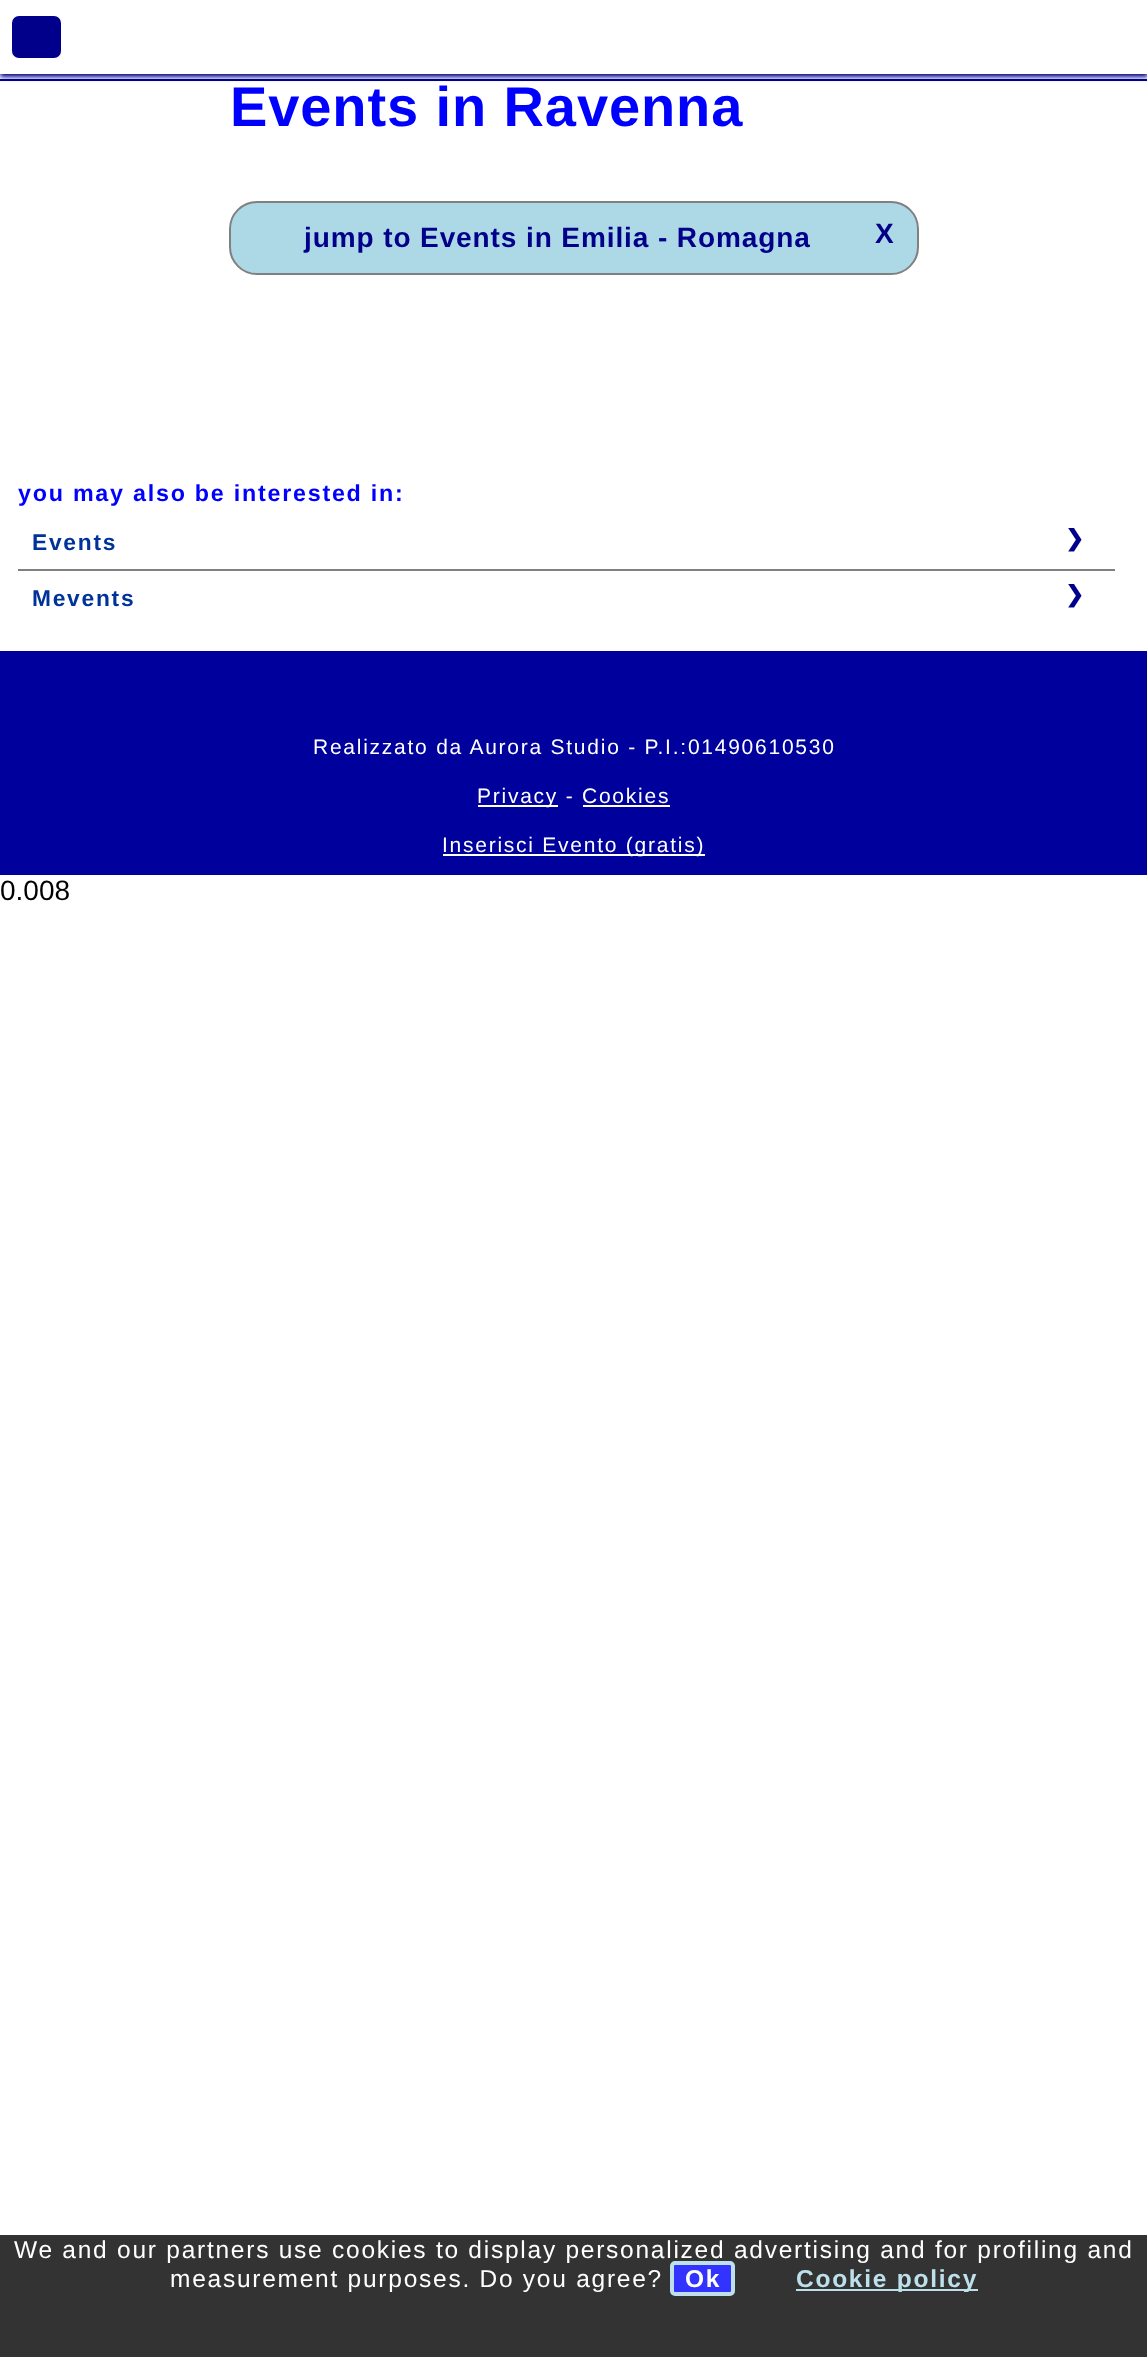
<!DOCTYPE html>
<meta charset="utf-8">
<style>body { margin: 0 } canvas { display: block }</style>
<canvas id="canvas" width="1147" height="2357"></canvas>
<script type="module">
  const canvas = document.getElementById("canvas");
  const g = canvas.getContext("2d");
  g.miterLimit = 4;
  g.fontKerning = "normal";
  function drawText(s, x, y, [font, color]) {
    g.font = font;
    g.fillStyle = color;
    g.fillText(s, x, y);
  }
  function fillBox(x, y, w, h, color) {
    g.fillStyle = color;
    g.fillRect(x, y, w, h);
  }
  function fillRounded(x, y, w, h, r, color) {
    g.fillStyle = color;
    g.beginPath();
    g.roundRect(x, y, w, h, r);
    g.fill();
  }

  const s1 = ["bold 56px Liberation Sans", "#0000FF"];
  const s2 = ["bold 28px Liberation Sans", "#00008B"];
  const s3 = ["bold 23.3px Liberation Sans", "#0000FF"];
  const s4 = ["bold 22.75px Liberation Sans", "#003399"];
  const s5 = ["bold 22.75px DejaVu Sans", "#00008B"];
  const s6 = ["21px Liberation Sans", "#FFFFFF"];
  const s7 = ["28px Liberation Sans", "#000000"];
  const s8 = ["24.5px Liberation Sans", "#FFFFFF"];
  const s9 = ["bold 24.5px Liberation Sans", "#FFFFFF"];
  const s10 = ["bold 24.5px Liberation Sans", "#BDE0EB"];

  fillBox(0, 0, 1147, 2357, "#FFFFFF");
  fillBox(0, 79, 1147, 2, "#00008B");
  g.filter = "blur(2.5px)";
  g.beginPath();
  g.rect(0, 4, 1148, 73);
  g.fill();
  g.filter = "none";
  fillBox(0, 0, 1147, 74, "#FFFFFF");
  fillRounded(12, 16, 49, 42, 7, "#00008B");
  g.letterSpacing = "0.9px";
  drawText("Events in Ravenna", 230, 126, s1);
  g.fillStyle = "#ADD8E6";
  g.beginPath();
  g.roundRect(230, 202, 688, 72, 27);
  g.fill();
  g.strokeStyle = "#808080";
  g.lineWidth = 2;
  g.stroke();
  drawText("jump to Events in Emilia - Romagna", 304, 247, s2);
  drawText("X", 875, 243, s2);
  g.letterSpacing = "1.75px";
  drawText("you may also be interested in:", 18, 501, s3);
  fillBox(18, 569, 1097, 2, "#808080");
  drawText("Events", 32, 550, s4);
  drawText("❯", 1065, 546, s5);
  drawText("Mevents", 32, 606, s4);
  drawText("❯", 1065, 602, s5);
  fillBox(0, 651, 1147, 224, "#00009C");
  drawText("Realizzato da Aurora Studio - P.I.:01490610530", 313, 754, s6);
  fillBox(478, 805, 80, 2, "#FFFFFF");
  drawText("Privacy - Cookies", 477, 803, s6);
  fillBox(583, 805, 87, 2, "#FFFFFF");
  fillBox(443, 854, 262, 2, "#FFFFFF");
  drawText("Inserisci Evento (gratis)", 442, 852, s6);
  g.letterSpacing = "0px";
  drawText("0.008", 0, 900, s7);
  fillBox(0, 2235, 1147, 122, "#333333");
  g.letterSpacing = "1.75px";
  drawText("We and our partners use cookies to display personalized advertising and for profiling and", 14, 2258, s8);
  drawText("measurement purposes. Do you agree?", 170, 2287, s8);
  g.fillStyle = "#3333FF";
  g.beginPath();
  g.roundRect(672, 2263, 61, 31, 3);
  g.fill();
  g.strokeStyle = "#BDE0EB";
  g.lineWidth = 4;
  g.stroke();
  drawText("Ok", 685, 2287, s9);
  fillBox(796, 2289, 182, 2, "#BDE0EB");
  drawText("Cookie policy", 796, 2287, s10);
</script>
